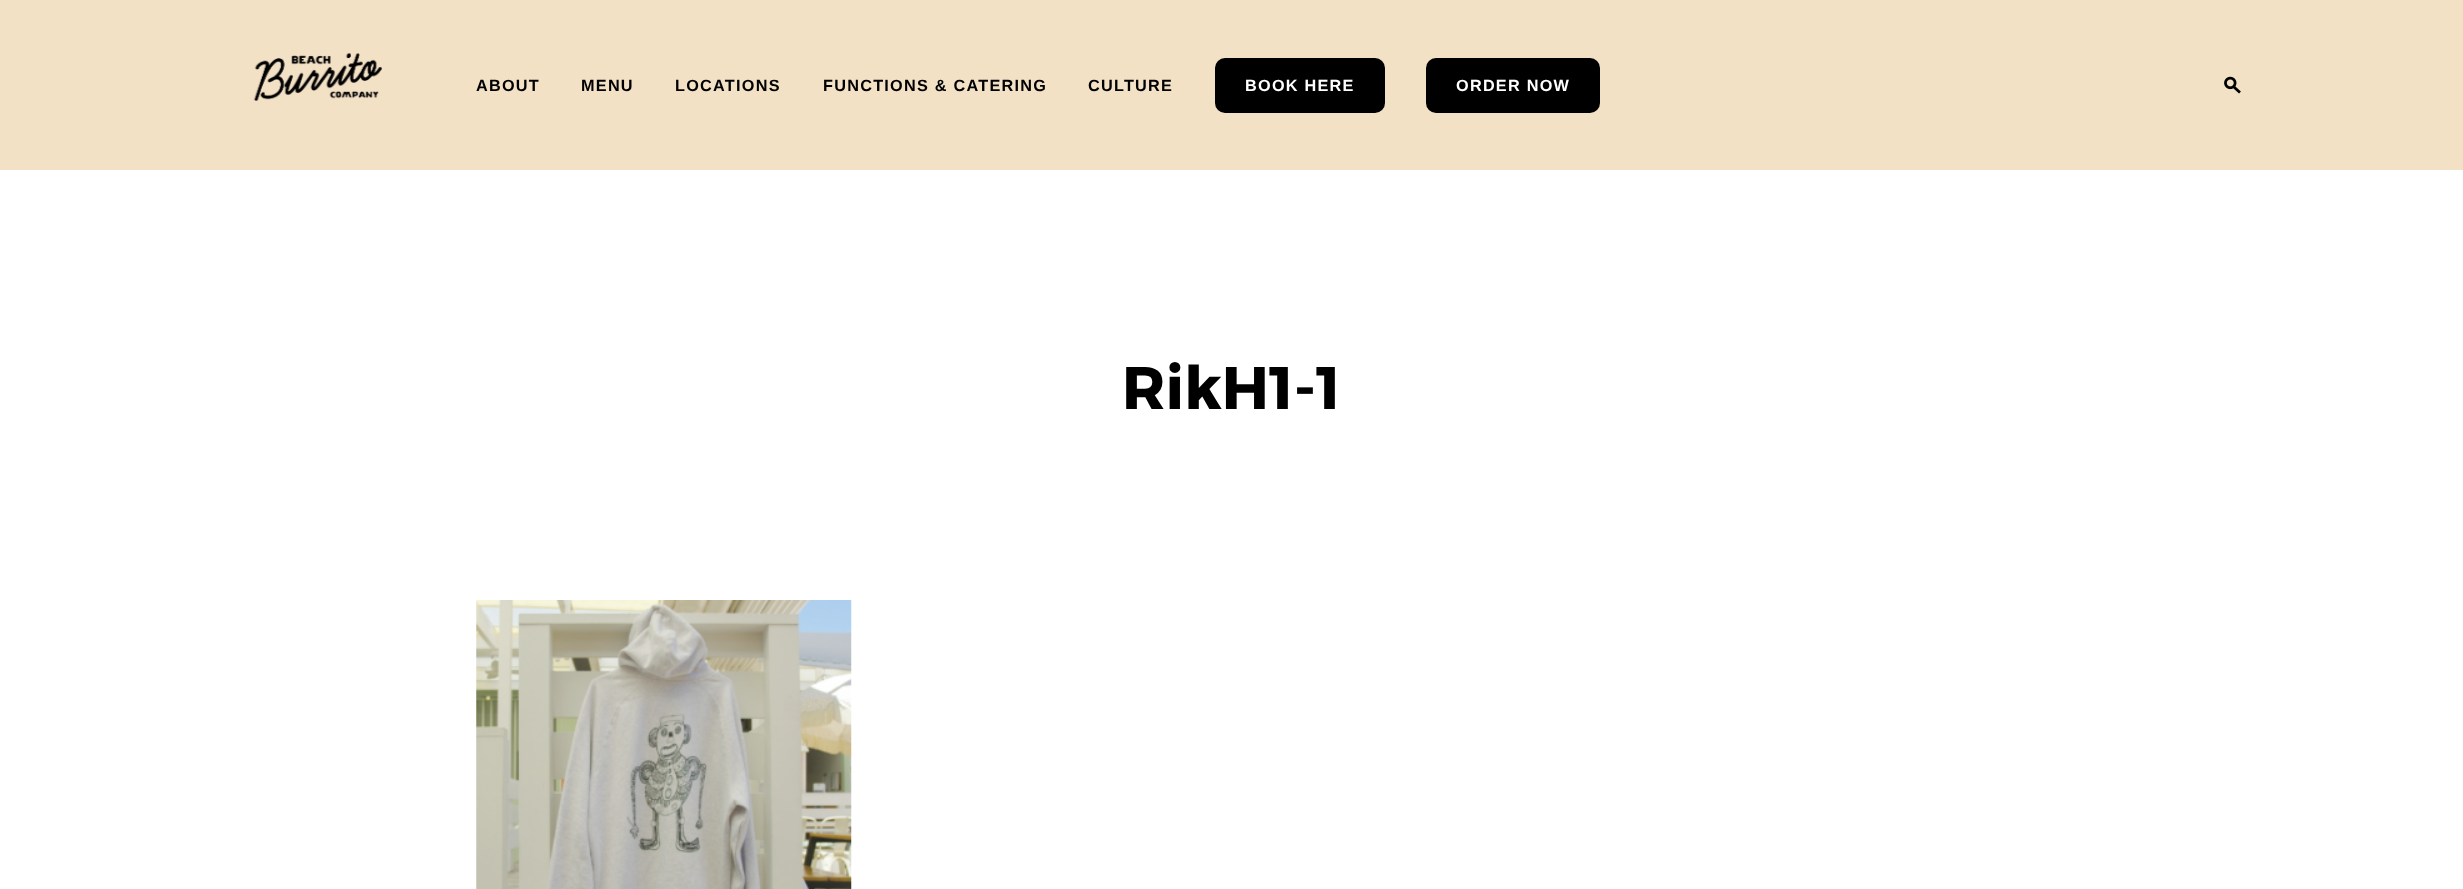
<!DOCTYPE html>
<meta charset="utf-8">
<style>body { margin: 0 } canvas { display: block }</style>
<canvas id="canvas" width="2463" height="889"></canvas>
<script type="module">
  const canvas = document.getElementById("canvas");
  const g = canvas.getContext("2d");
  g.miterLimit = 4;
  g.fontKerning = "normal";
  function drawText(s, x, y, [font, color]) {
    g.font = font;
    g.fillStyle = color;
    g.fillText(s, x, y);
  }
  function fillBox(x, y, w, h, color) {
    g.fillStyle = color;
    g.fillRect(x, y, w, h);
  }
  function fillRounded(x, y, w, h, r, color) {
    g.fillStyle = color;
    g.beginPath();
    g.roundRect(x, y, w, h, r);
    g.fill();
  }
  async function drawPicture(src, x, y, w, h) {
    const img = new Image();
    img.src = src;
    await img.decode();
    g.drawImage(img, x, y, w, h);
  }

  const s1 = ["bold 16.25px Liberation Sans", "#000000"];
  const s2 = ["bold 16.25px Liberation Sans", "#FFFFFF"];
  const s3 = ["bold 60px Montserrat", "#000000"];

  fillBox(0, 0, 2463, 889, "#FFFFFF");
  fillBox(0, 0, 2463, 170, "#F3E1C6");
  await drawPicture("pic1.png", 253, 53, 129, 48);
  g.letterSpacing = "1.25px";
  drawText("ABOUT", 476, 91, s1);
  drawText("MENU", 581, 91, s1);
  drawText("LOCATIONS", 675, 91, s1);
  drawText("FUNCTIONS & CATERING", 823, 91, s1);
  drawText("CULTURE", 1088, 91, s1);
  fillRounded(1215, 58, 170, 55, 10, "#000000");
  drawText("BOOK HERE", 1245, 91, s2);
  fillRounded(1426, 58, 174, 55, 10, "#000000");
  drawText("ORDER NOW", 1456, 91, s2);
  await drawPicture("pic2.png", 2224, 76, 17, 18);
  g.letterSpacing = "0px";
  drawText("RikH1-1", 1122, 409, s3);
  await drawPicture("pic3.png", 476, 600, 376, 289);
</script>
